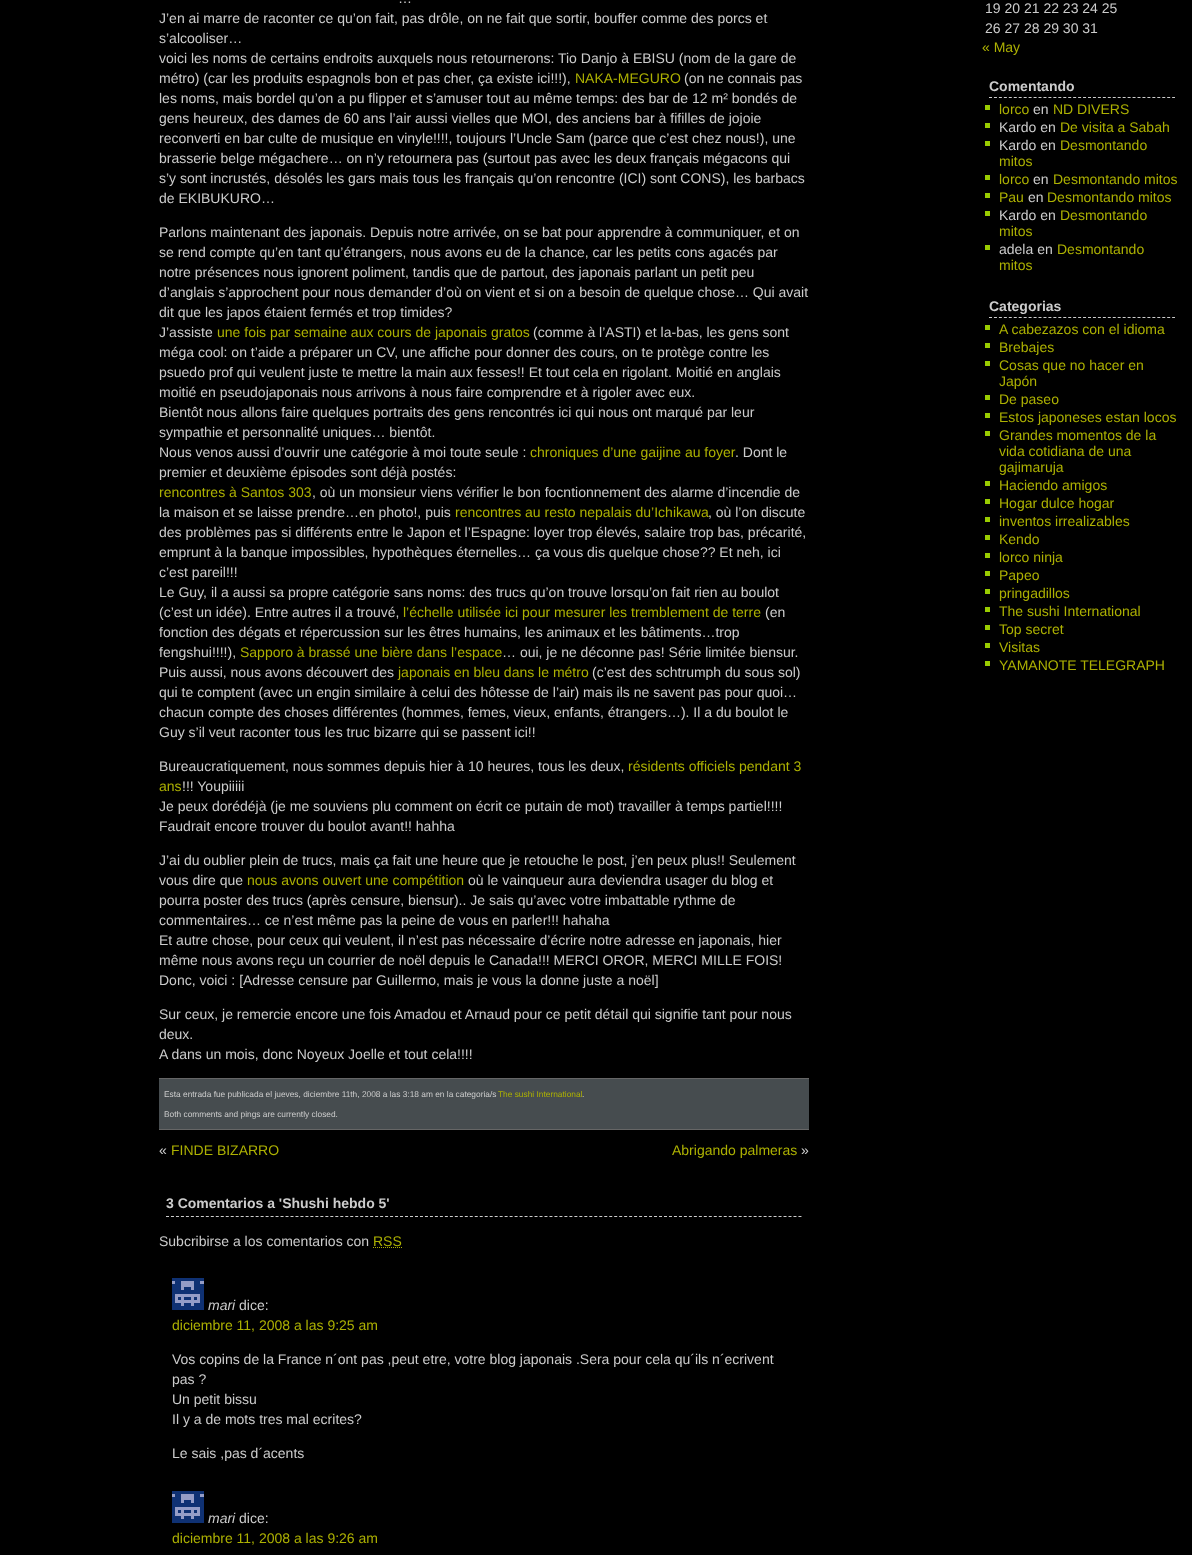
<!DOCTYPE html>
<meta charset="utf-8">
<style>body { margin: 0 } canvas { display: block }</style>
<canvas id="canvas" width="1192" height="1555"></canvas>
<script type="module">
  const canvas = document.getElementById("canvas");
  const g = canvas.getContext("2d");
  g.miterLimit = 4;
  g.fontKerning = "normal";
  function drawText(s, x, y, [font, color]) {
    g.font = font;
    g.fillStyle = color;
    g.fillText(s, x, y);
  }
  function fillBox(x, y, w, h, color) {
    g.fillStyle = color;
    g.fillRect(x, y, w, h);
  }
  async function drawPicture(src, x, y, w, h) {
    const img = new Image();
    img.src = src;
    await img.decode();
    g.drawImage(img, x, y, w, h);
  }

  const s1 = ["14px Liberation Sans", "#CCCCCC"];
  const s2 = ["14px Liberation Sans", "#ADB102"];
  const s3 = ["8.35px Liberation Sans", "#CCCCCC"];
  const s4 = ["8.35px Liberation Sans", "#ADB102"];
  const s5 = ["bold 14px Liberation Sans", "#CCCCCC"];
  const s6 = ["italic 14px Liberation Sans", "#CCCCCC"];

  fillBox(0, 0, 1192, 1555, "#000000");
  drawText("…", 398, 3, s1);
  drawText("J’en ai marre de raconter ce qu’on fait, pas drôle, on ne fait que sortir, bouffer comme des porcs et", 159, 23, s1);
  drawText("s’alcooliser…", 159, 43, s1);
  drawText("voici les noms de certains endroits auxquels nous retournerons: Tio Danjo à EBISU (nom de la gare de", 159, 63, s1);
  drawText("métro) (car les produits espagnols bon et pas cher, ça existe ici!!!),", 159, 83, s1);
  drawText("NAKA-MEGURO", 575, 83, s2);
  drawText("(on ne connais pas", 684, 83, s1);
  drawText("les noms, mais bordel qu’on a pu flipper et s’amuser tout au même temps: des bar de 12 m² bondés de", 159, 103, s1);
  drawText("gens heureux, des dames de 60 ans l’air aussi vielles que MOI, des anciens bar à fifilles de jojoie", 159, 123, s1);
  drawText("reconverti en bar culte de musique en vinyle!!!!, toujours l’Uncle Sam (parce que c’est chez nous!), une", 159, 143, s1);
  drawText("brasserie belge mégachere… on n’y retournera pas (surtout pas avec les deux français mégacons qui", 159, 163, s1);
  drawText("s’y sont incrustés, désolés les gars mais tous les français qu’on rencontre (ICI) sont CONS), les barbacs", 159, 183, s1);
  drawText("de EKIBUKURO…", 159, 203, s1);
  drawText("Parlons maintenant des japonais. Depuis notre arrivée, on se bat pour apprendre à communiquer, et on", 159, 237, s1);
  drawText("se rend compte qu’en tant qu’étrangers, nous avons eu de la chance, car les petits cons agacés par", 159, 257, s1);
  drawText("notre présences nous ignorent poliment, tandis que de partout, des japonais parlant un petit peu", 159, 277, s1);
  drawText("d’anglais s’approchent pour nous demander d’où on vient et si on a besoin de quelque chose… Qui avait", 159, 297, s1);
  drawText("dit que les japos étaient fermés et trop timides?", 159, 317, s1);
  drawText("J’assiste", 159, 337, s1);
  drawText("une fois par semaine aux cours de japonais gratos", 217, 337, s2);
  drawText("(comme à l’ASTI) et la-bas, les gens sont", 533, 337, s1);
  drawText("méga cool: on t’aide a préparer un CV, une affiche pour donner des cours, on te protège contre les", 159, 357, s1);
  drawText("psuedo prof qui veulent juste te mettre la main aux fesses!! Et tout cela en rigolant. Moitié en anglais", 159, 377, s1);
  drawText("moitié en pseudojaponais nous arrivons à nous faire comprendre et à rigoler avec eux.", 159, 397, s1);
  drawText("Bientôt nous allons faire quelques portraits des gens rencontrés ici qui nous ont marqué par leur", 159, 417, s1);
  drawText("sympathie et personnalité uniques… bientôt.", 159, 437, s1);
  drawText("Nous venos aussi d’ouvrir une catégorie à moi toute seule :", 159, 457, s1);
  drawText("chroniques d’une gaijine au foyer", 530, 457, s2);
  drawText(". Dont le", 735, 457, s1);
  drawText("premier et deuxième épisodes sont déjà postés:", 159, 477, s1);
  drawText("rencontres à Santos 303", 159, 497, s2);
  drawText(", où un monsieur viens vérifier le bon focntionnement des alarme d’incendie de", 312, 497, s1);
  drawText("la maison et se laisse prendre…en photo!, puis", 159, 517, s1);
  drawText("rencontres au resto nepalais du’Ichikawa", 455, 517, s2);
  drawText(", où l’on discute", 708, 517, s1);
  drawText("des problèmes pas si différents entre le Japon et l’Espagne: loyer trop élevés, salaire trop bas, précarité,", 159, 537, s1);
  drawText("emprunt à la banque impossibles, hypothèques éternelles… ça vous dis quelque chose?? Et neh, ici", 159, 557, s1);
  drawText("c’est pareil!!!", 159, 577, s1);
  drawText("Le Guy, il a aussi sa propre catégorie sans noms: des trucs qu’on trouve lorsqu’on fait rien au boulot", 159, 597, s1);
  drawText("(c’est un idée). Entre autres il a trouvé,", 159, 617, s1);
  drawText("l’échelle utilisée ici pour mesurer les tremblement de terre", 403, 617, s2);
  drawText("(en", 765, 617, s1);
  drawText("fonction des dégats et répercussion sur les êtres humains, les animaux et les bâtiments…trop", 159, 637, s1);
  drawText("fengshui!!!!),", 159, 657, s1);
  drawText("Sapporo à brassé une bière dans l’espace", 240, 657, s2);
  drawText("… oui, je ne déconne pas! Série limitée biensur.", 502, 657, s1);
  drawText("Puis aussi, nous avons découvert des", 159, 677, s1);
  drawText("japonais en bleu dans le métro", 398, 677, s2);
  drawText("(c’est des schtrumph du sous sol)", 592, 677, s1);
  drawText("qui te comptent (avec un engin similaire à celui des hôtesse de l’air) mais ils ne savent pas pour quoi…", 159, 697, s1);
  drawText("chacun compte des choses différentes (hommes, femes, vieux, enfants, étrangers…). Il a du boulot le", 159, 717, s1);
  drawText("Guy s’il veut raconter tous les truc bizarre qui se passent ici!!", 159, 737, s1);
  drawText("Bureaucratiquement, nous sommes depuis hier à 10 heures, tous les deux,", 159, 771, s1);
  drawText("résidents officiels pendant 3", 628, 771, s2);
  drawText("ans", 159, 791, s2);
  drawText("!!! Youpiiiii", 182, 791, s1);
  drawText("Je peux dorédéjà (je me souviens plu comment on écrit ce putain de mot) travailler à temps partiel!!!!", 159, 811, s1);
  drawText("Faudrait encore trouver du boulot avant!! hahha", 159, 831, s1);
  drawText("J’ai du oublier plein de trucs, mais ça fait une heure que je retouche le post, j’en peux plus!! Seulement", 159, 865, s1);
  drawText("vous dire que", 159, 885, s1);
  drawText("nous avons ouvert une compétition", 247, 885, s2);
  drawText("où le vainqueur aura deviendra usager du blog et", 468, 885, s1);
  drawText("pourra poster des trucs (après censure, biensur).. Je sais qu’avec votre imbattable rythme de", 159, 905, s1);
  drawText("commentaires… ce n’est même pas la peine de vous en parler!!! hahaha", 159, 925, s1);
  drawText("Et autre chose, pour ceux qui veulent, il n’est pas nécessaire d’écrire notre adresse en japonais, hier", 159, 945, s1);
  drawText("même nous avons reçu un courrier de noël depuis le Canada!!! MERCI OROR, MERCI MILLE FOIS!", 159, 965, s1);
  drawText("Donc, voici : [Adresse censure par Guillermo, mais je vous la donne juste a noël]", 159, 985, s1);
  drawText("Sur ceux, je remercie encore une fois Amadou et Arnaud pour ce petit détail qui signifie tant pour nous", 159, 1019, s1);
  drawText("deux.", 159, 1039, s1);
  drawText("A dans un mois, donc Noyeux Joelle et tout cela!!!!", 159, 1059, s1);
  fillBox(159, 1079, 650, 50, "#464C4F");
  fillBox(159, 1078, 650, 1, "#666666");
  fillBox(159, 1129, 650, 1, "#666666");
  drawText("Esta entrada fue publicada el jueves, diciembre 11th, 2008 a las 3:18 am en la categoria/s", 164, 1097, s3);
  drawText("The sushi International", 498, 1097, s4);
  drawText(".", 582, 1097, s3);
  drawText("Both comments and pings are currently closed.", 164, 1117, s3);
  drawText("«", 159, 1155, s1);
  drawText("FINDE BIZARRO", 171, 1155, s2);
  drawText("Abrigando palmeras", 672, 1155, s2);
  drawText("»", 801, 1155, s1);
  g.beginPath();
  g.moveTo(166, 1216.5);
  g.lineTo(802, 1216.5);
  g.strokeStyle = "#CCCCCC";
  g.setLineDash([3, 1.98]);
  g.stroke();
  drawText("3 Comentarios a 'Shushi hebdo 5'", 166, 1208, s5);
  drawText("Subcribirse a los comentarios con", 159, 1246, s1);
  drawText("RSS", 373, 1246, s2);
  g.beginPath();
  g.moveTo(373, 1247.5);
  g.lineTo(402, 1247.5);
  g.strokeStyle = "#ADB102";
  g.setLineDash([1, 1]);
  g.stroke();
  await drawPicture("pic1.png", 172, 1278, 32, 32);
  drawText("mari", 208, 1310, s6);
  drawText("dice:", 239, 1310, s1);
  drawText("diciembre 11, 2008 a las 9:25 am", 172, 1330, s2);
  drawText("Vos copins de la France n´ont pas ,peut etre, votre blog japonais .Sera pour cela qu´ils n´ecrivent", 172, 1364, s1);
  drawText("pas ?", 172, 1384, s1);
  drawText("Un petit bissu", 172, 1404, s1);
  drawText("Il y a de mots tres mal ecrites?", 172, 1424, s1);
  drawText("Le sais ,pas d´acents", 172, 1458, s1);
  await drawPicture("pic1.png", 172, 1491, 32, 32);
  drawText("mari", 208, 1523, s6);
  drawText("dice:", 239, 1523, s1);
  drawText("diciembre 11, 2008 a las 9:26 am", 172, 1543, s2);
  drawText("19 20 21 22 23 24 25", 985, 13, s1);
  drawText("26 27 28 29 30 31", 985, 33, s1);
  drawText("« May", 982, 52, s2);
  g.beginPath();
  g.moveTo(989, 97.5);
  g.lineTo(1175, 97.5);
  g.strokeStyle = "#CCCCCC";
  g.setLineDash([3, 1.95]);
  g.stroke();
  drawText("Comentando", 989, 91, s5);
  fillBox(985, 105, 5, 5, "#99CC00");
  drawText("lorco", 999, 114, s2);
  drawText("en", 1033, 114, s1);
  drawText("ND DIVERS", 1053, 114, s2);
  fillBox(985, 123, 5, 5, "#99CC00");
  drawText("Kardo en", 999, 132, s1);
  drawText("De visita a Sabah", 1060, 132, s2);
  fillBox(985, 141, 5, 5, "#99CC00");
  drawText("Kardo en", 999, 150, s1);
  drawText("Desmontando", 1060, 150, s2);
  drawText("mitos", 999, 166, s2);
  fillBox(985, 175, 5, 5, "#99CC00");
  drawText("lorco", 999, 184, s2);
  drawText("en", 1033, 184, s1);
  drawText("Desmontando mitos", 1053, 184, s2);
  fillBox(985, 193, 5, 5, "#99CC00");
  drawText("Pau", 999, 202, s2);
  drawText("en", 1028, 202, s1);
  drawText("Desmontando mitos", 1047, 202, s2);
  fillBox(985, 211, 5, 5, "#99CC00");
  drawText("Kardo en", 999, 220, s1);
  drawText("Desmontando", 1060, 220, s2);
  drawText("mitos", 999, 236, s2);
  fillBox(985, 245, 5, 5, "#99CC00");
  drawText("adela en", 999, 254, s1);
  drawText("Desmontando", 1057, 254, s2);
  drawText("mitos", 999, 270, s2);
  g.beginPath();
  g.moveTo(989, 317.5);
  g.lineTo(1175, 317.5);
  g.stroke();
  drawText("Categorias", 989, 311, s5);
  fillBox(985, 325, 5, 5, "#99CC00");
  drawText("A cabezazos con el idioma", 999, 334, s2);
  fillBox(985, 343, 5, 5, "#99CC00");
  drawText("Brebajes", 999, 352, s2);
  fillBox(985, 361, 5, 5, "#99CC00");
  drawText("Cosas que no hacer en", 999, 370, s2);
  drawText("Japón", 999, 386, s2);
  fillBox(985, 395, 5, 5, "#99CC00");
  drawText("De paseo", 999, 404, s2);
  fillBox(985, 413, 5, 5, "#99CC00");
  drawText("Estos japoneses estan locos", 999, 422, s2);
  fillBox(985, 431, 5, 5, "#99CC00");
  drawText("Grandes momentos de la", 999, 440, s2);
  drawText("vida cotidiana de una", 999, 456, s2);
  drawText("gajimaruja", 999, 472, s2);
  fillBox(985, 481, 5, 5, "#99CC00");
  drawText("Haciendo amigos", 999, 490, s2);
  fillBox(985, 499, 5, 5, "#99CC00");
  drawText("Hogar dulce hogar", 999, 508, s2);
  fillBox(985, 517, 5, 5, "#99CC00");
  drawText("inventos irrealizables", 999, 526, s2);
  fillBox(985, 535, 5, 5, "#99CC00");
  drawText("Kendo", 999, 544, s2);
  fillBox(985, 553, 5, 5, "#99CC00");
  drawText("lorco ninja", 999, 562, s2);
  fillBox(985, 571, 5, 5, "#99CC00");
  drawText("Papeo", 999, 580, s2);
  fillBox(985, 589, 5, 5, "#99CC00");
  drawText("pringadillos", 999, 598, s2);
  fillBox(985, 607, 5, 5, "#99CC00");
  drawText("The sushi International", 999, 616, s2);
  fillBox(985, 625, 5, 5, "#99CC00");
  drawText("Top secret", 999, 634, s2);
  fillBox(985, 643, 5, 5, "#99CC00");
  drawText("Visitas", 999, 652, s2);
  fillBox(985, 661, 5, 5, "#99CC00");
  drawText("YAMANOTE TELEGRAPH", 999, 670, s2);
</script>
